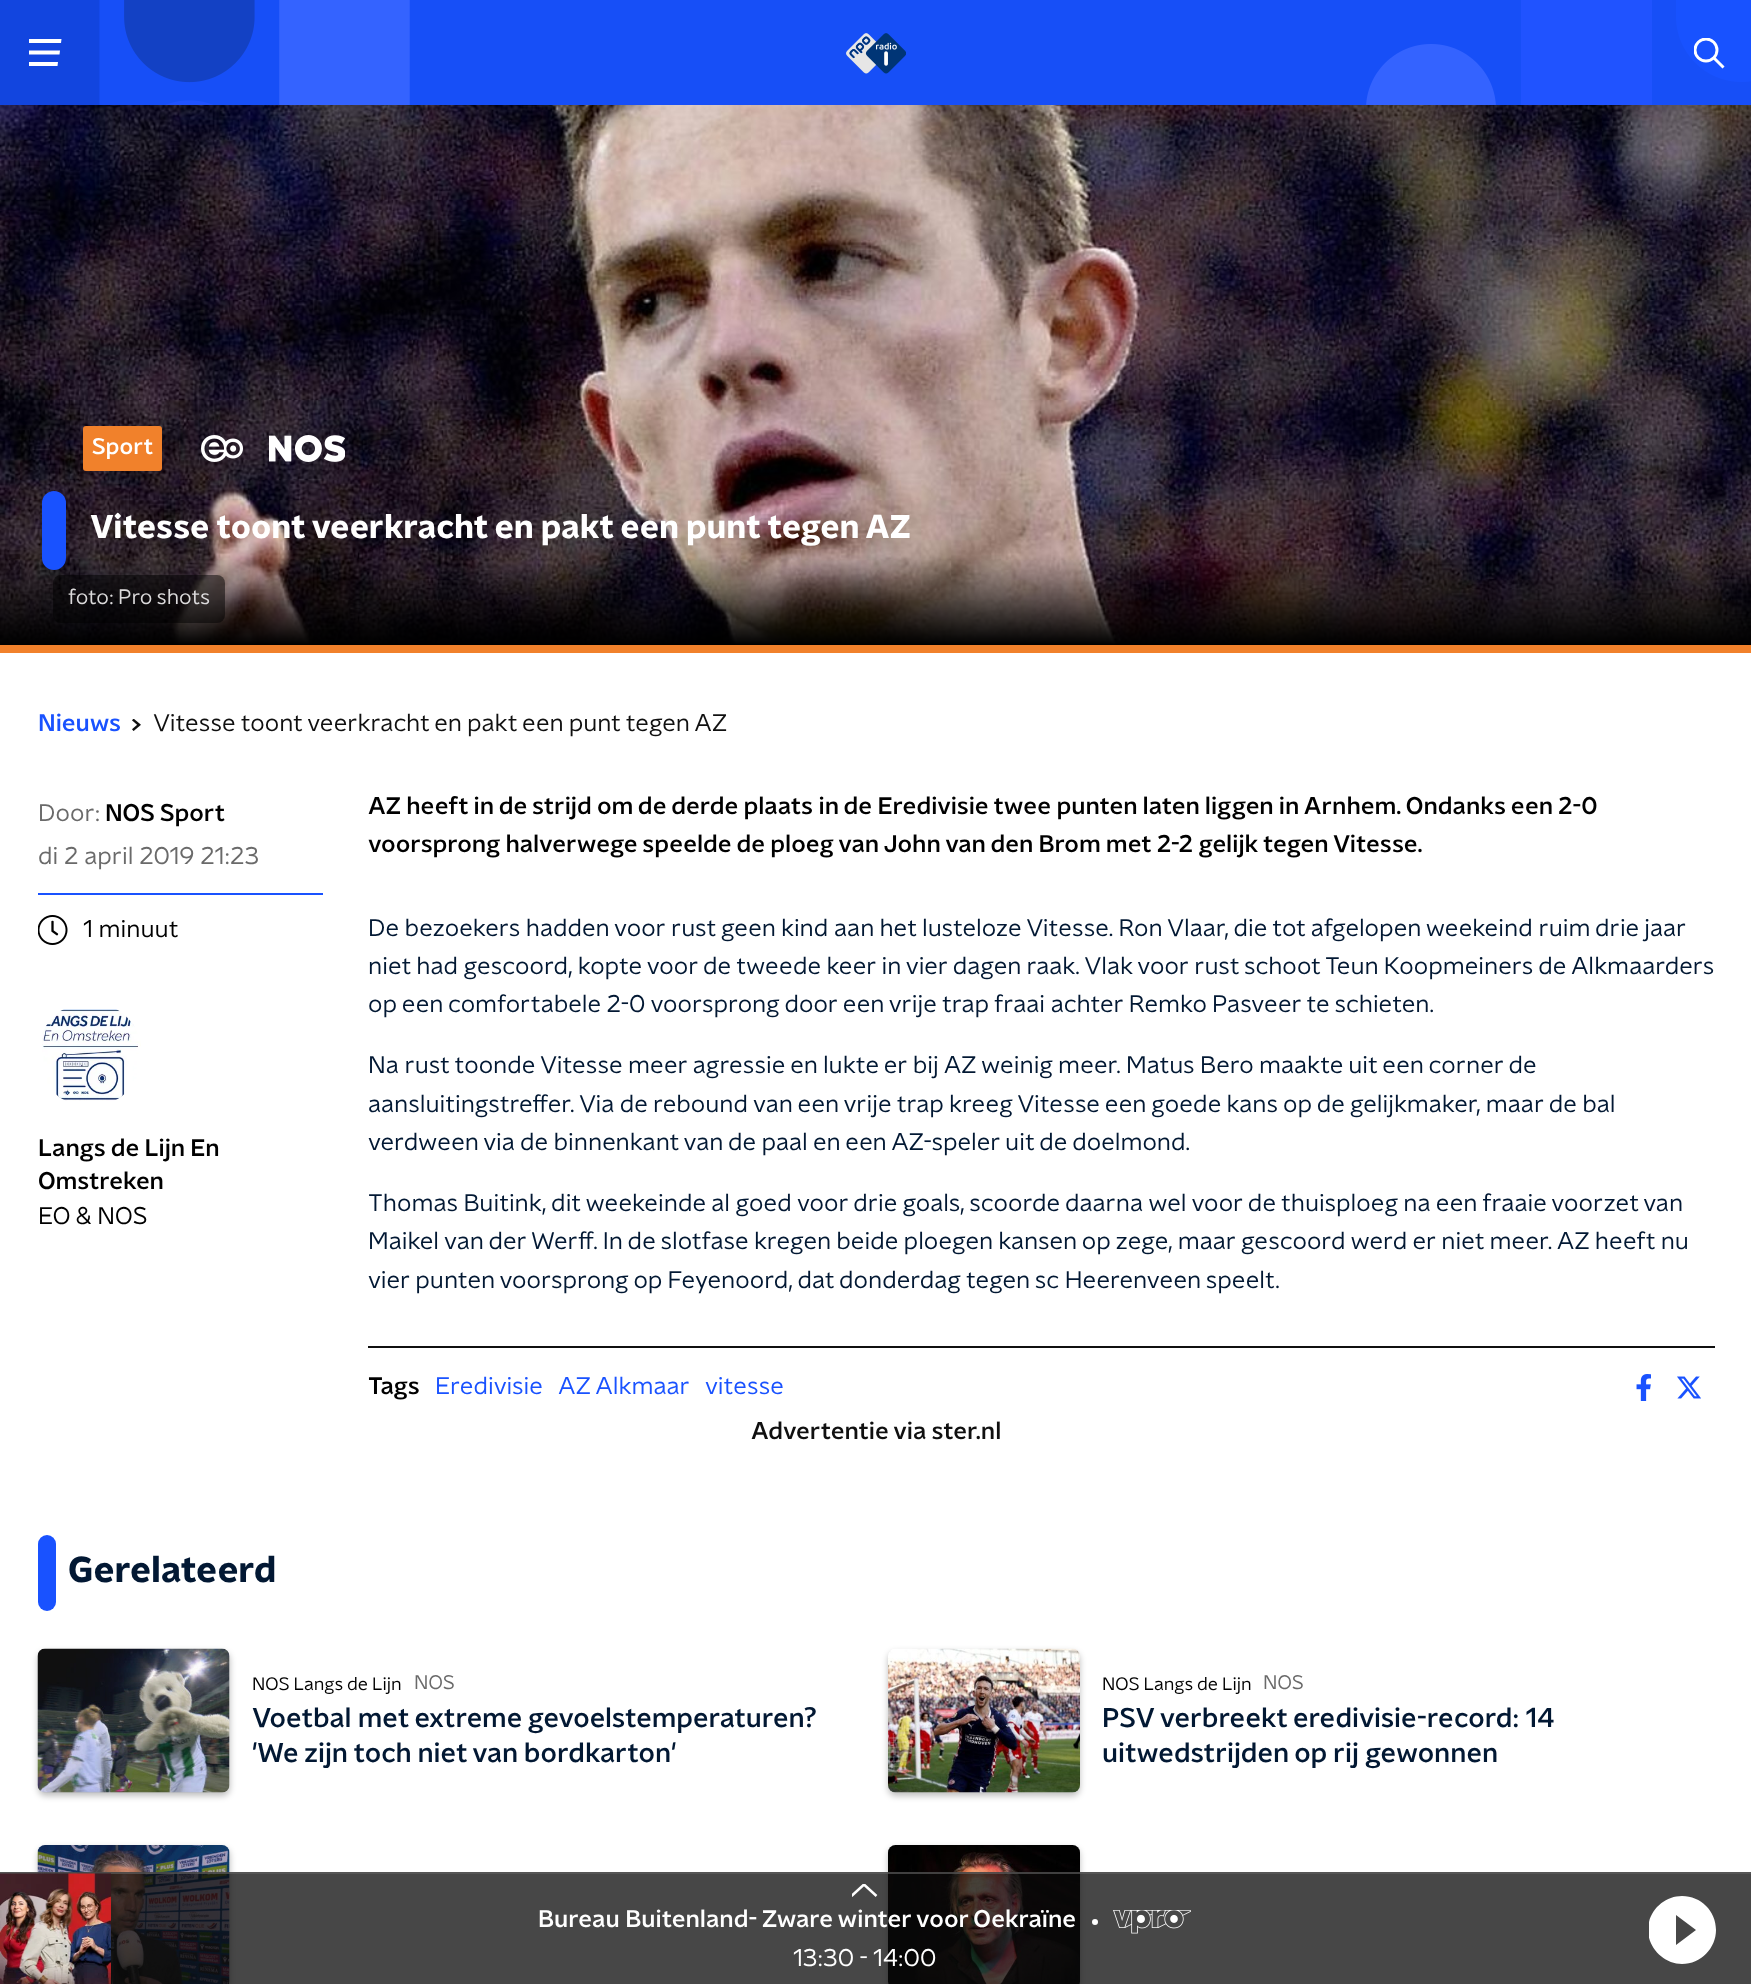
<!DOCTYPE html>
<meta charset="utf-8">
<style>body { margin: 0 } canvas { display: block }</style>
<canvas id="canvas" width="1751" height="1984"></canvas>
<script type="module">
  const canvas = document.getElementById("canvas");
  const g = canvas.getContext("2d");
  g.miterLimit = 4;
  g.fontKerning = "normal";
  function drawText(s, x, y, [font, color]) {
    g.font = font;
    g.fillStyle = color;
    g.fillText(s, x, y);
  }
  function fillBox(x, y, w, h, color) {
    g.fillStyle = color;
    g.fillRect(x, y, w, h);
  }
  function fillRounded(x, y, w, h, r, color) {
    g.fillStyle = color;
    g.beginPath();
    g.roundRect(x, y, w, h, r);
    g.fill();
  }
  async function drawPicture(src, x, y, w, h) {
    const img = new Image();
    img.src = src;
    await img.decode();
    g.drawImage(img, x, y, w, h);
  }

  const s1 = ["500 22.5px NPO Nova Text", "#FFFFFF"];
  const s2 = ["bold 33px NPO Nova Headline", "#FFFFFF"];
  const s3 = ["21px NPO Nova Text", "#DBDADB"];
  const s4 = ["500 24px NPO Nova Text", "#1952FF"];
  const s5 = ["24px NPO Nova Text", "#101010"];
  const s6 = ["24px NPO Nova Text", "#6A6A6A"];
  const s7 = ["500 24px NPO Nova Text", "#000000"];
  const s8 = ["24px NPO Nova Text", "#000000"];
  const s9 = ["24px NPO Nova Text", "#021833"];
  const s10 = ["24px NPO Nova Text", "#1952FF"];
  const s11 = ["500 24px NPO Nova Text", "#101010"];
  const s12 = ["bold 36px NPO Nova Headline", "#021833"];
  const s13 = ["18px NPO Nova Text", "#000000"];
  const s14 = ["19.5px NPO Nova Text", "#6A6A6A"];
  const s15 = ["500 27px NPO Nova Text", "#021833"];
  const s16 = ["500 24px NPO Nova Text", "#FFFFFF"];
  const s17 = ["24px NPO Nova Text", "#FFFFFF"];

  fillBox(0, 0, 1751, 1984, "#FFFFFF");
  await drawPicture("pic1.png", 0, 0, 1751, 105);
  g.save();
  g.beginPath();
  g.rect(29, 36, 33, 33);
  g.clip();
  g.beginPath();
  g.moveTo(28.5, 39);
  g.lineTo(61.5, 39);
  g.lineTo(61, 43);
  g.lineTo(28.5, 43);
  g.closePath();
  g.moveTo(28.5, 50.5);
  g.lineTo(60, 50.5);
  g.lineTo(59.5, 54.5);
  g.lineTo(28.5, 54.5);
  g.closePath();
  g.moveTo(28.5, 62);
  g.lineTo(58, 62);
  g.lineTo(57.5, 66);
  g.lineTo(28.5, 66);
  g.closePath();
  g.fill();
  g.restore();
  await drawPicture("pic2.png", 846, 33, 60, 41);
  g.save();
  g.beginPath();
  g.rect(1694, 38, 30, 30);
  g.clip();
  g.beginPath();
  g.arc(1706, 50, 11, 0, Math.PI * 2);
  g.strokeStyle = "#FFFFFF";
  g.lineWidth = 2.9;
  g.stroke();
  g.restore();
  g.beginPath();
  g.moveTo(1714, 58);
  g.lineTo(1722.5, 66.5);
  g.strokeStyle = "#FFFFFF";
  g.lineWidth = 2.9;
  g.lineCap = "square";
  g.stroke();
  fillBox(0, 645, 1751, 8, "#F1812B");
  await drawPicture("pic3.png", 0, 105, 1751, 540);
  fillRounded(83, 426, 79, 45, 3, "#F1812B");
  drawText("Sport", 92, 454, s1);
  await drawPicture("pic4.png", 201, 435, 42, 27);
  await drawPicture("pic5.png", 269, 435, 76, 27);
  fillRounded(42, 491, 24, 79, 12, "#1952FF");
  drawText("Vitesse toont veerkracht en pakt een punt tegen AZ", 90, 538, s2);
  fillRounded(53, 575, 172, 48, 8, "rgba(0, 0, 0, 0.5)");
  drawText("foto:", 68, 604, s3);
  drawText("Pro shots", 118, 604, s3);
  drawText("Nieuws", 38, 731, s4);
  await drawPicture("pic6.png", 132, 719, 9, 12);
  drawText("Vitesse toont veerkracht en pakt een punt tegen AZ", 153, 731, s5);
  drawText("Door:", 38, 821, s6);
  drawText("NOS Sport", 105, 821, s7);
  drawText("di 2 april 2019 21:23", 38, 864, s6);
  fillBox(38, 893, 285, 2, "#1952FF");
  await drawPicture("pic7.png", 38, 915, 30, 30);
  drawText("1 minuut", 83, 937, s8);
  drawText("AZ heeft in de strijd om de derde plaats in de Eredivisie twee punten laten liggen in Arnhem. Ondanks een 2-0", 368, 814, s7);
  drawText("voorsprong halverwege speelde de ploeg van John van den Brom met 2-2 gelijk tegen Vitesse.", 368, 852, s7);
  drawText("De bezoekers hadden voor rust geen kind aan het lusteloze Vitesse. Ron Vlaar, die tot afgelopen weekeind ruim drie jaar", 368, 936, s9);
  drawText("niet had gescoord, kopte voor de tweede keer in vier dagen raak. Vlak voor rust schoot Teun Koopmeiners de Alkmaarders", 368, 974, s9);
  drawText("op een comfortabele 2-0 voorsprong door een vrije trap fraai achter Remko Pasveer te schieten.", 368, 1012, s9);
  drawText("Na rust toonde Vitesse meer agressie en lukte er bij AZ weinig meer. Matus Bero maakte uit een corner de", 368, 1073, s9);
  drawText("aansluitingstreffer. Via de rebound van een vrije trap kreeg Vitesse een goede kans op de gelijkmaker, maar de bal", 368, 1112, s9);
  drawText("verdween via de binnenkant van de paal en een AZ-speler uit de doelmond.", 368, 1150, s9);
  drawText("Thomas Buitink, dit weekeinde al goed voor drie goals, scoorde daarna wel voor de thuisploeg na een fraaie voorzet van", 368, 1211, s9);
  drawText("Maikel van der Werff. In de slotfase kregen beide ploegen kansen op zege, maar gescoord werd er niet meer. AZ heeft nu", 368, 1249, s9);
  drawText("vier punten voorsprong op Feyenoord, dat donderdag tegen sc Heerenveen speelt.", 368, 1288, s9);
  await drawPicture("pic8.png", 42, 1009, 99, 92);
  drawText("Langs de Lijn En", 38, 1156, s7);
  drawText("Omstreken", 38, 1189, s7);
  drawText("EO & NOS", 38, 1224, s8);
  fillBox(368, 1346, 1347, 2, "#101010");
  drawText("Tags", 368, 1394, s7);
  drawText("Eredivisie", 435, 1394, s10);
  drawText("AZ Alkmaar", 558, 1394, s10);
  drawText("vitesse", 705, 1394, s10);
  await drawPicture("pic9.png", 1636, 1374, 15, 27);
  await drawPicture("pic10.png", 1677, 1376, 24, 23);
  drawText("Advertentie via ster.nl", 751, 1439, s11);
  fillRounded(38, 1535, 18, 76, 9, "#1952FF");
  drawText("Gerelateerd", 68, 1582, s12);
  g.fillStyle = "rgba(0, 0, 0, 0.25)";
  g.filter = "blur(3px)";
  g.beginPath();
  g.roundRect(38, 1652, 192, 144, 8);
  g.fill();
  g.filter = "none";
  await drawPicture("pic11.png", 37, 1648, 193, 145);
  drawText("NOS Langs de Lijn", 252, 1690, s13);
  drawText("NOS", 414, 1689, s14);
  drawText("Voetbal met extreme gevoelstemperaturen?", 252, 1727, s15);
  drawText("'We zijn toch niet van bordkarton'", 252, 1762, s15);
  g.fillStyle = "rgba(0, 0, 0, 0.25)";
  g.filter = "blur(3px)";
  g.beginPath();
  g.roundRect(888, 1652, 192, 144, 8);
  g.fill();
  g.filter = "none";
  await drawPicture("pic12.png", 888, 1648, 192, 145);
  drawText("NOS Langs de Lijn", 1102, 1690, s13);
  drawText("NOS", 1263, 1689, s14);
  drawText("PSV verbreekt eredivisie-record: 14", 1102, 1727, s15);
  drawText("uitwedstrijden op rij gewonnen", 1102, 1762, s15);
  g.fillStyle = "rgba(0, 0, 0, 0.25)";
  g.filter = "blur(3px)";
  g.beginPath();
  g.roundRect(38, 1848, 192, 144, 8);
  g.fill();
  g.filter = "none";
  await drawPicture("pic13.png", 37, 1845, 193, 139);
  g.filter = "blur(3px)";
  g.beginPath();
  g.roundRect(888, 1848, 192, 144, 8);
  g.fill();
  g.filter = "none";
  await drawPicture("pic14.png", 888, 1845, 192, 139);
  fillBox(0, 1872, 1751, 112, "rgba(9, 9, 9, 0.75)");
  fillBox(0, 1872, 1751, 2, "rgba(95, 95, 95, 0.65)");
  await drawPicture("pic15.png", 0, 1873, 111, 111);
  g.save();
  g.beginPath();
  g.rect(852, 1884, 27, 14);
  g.clip();
  g.beginPath();
  g.moveTo(876.5, 1896);
  g.lineTo(864, 1884.5);
  g.lineTo(851.5, 1896);
  g.lineWidth = 2.5;
  g.lineCap = "butt";
  g.stroke();
  g.restore();
  drawText("Bureau Buitenland- Zware winter voor Oekraïne", 538, 1927, s16);
  g.beginPath();
  g.arc(1095, 1922, 3, 0, Math.PI * 2);
  g.fill();
  await drawPicture("pic16.png", 1113, 1910, 78, 24);
  drawText("13:30 - 14:00", 793, 1966, s17);
  g.save();
  g.beginPath();
  g.rect(1649, 1896, 67, 68);
  g.clip();
  g.beginPath();
  g.moveTo(1682, 1896);
  g.bezierCurveTo(1664, 1896, 1648, 1911, 1648, 1930);
  g.bezierCurveTo(1648, 1948, 1664, 1964, 1682, 1964);
  g.bezierCurveTo(1701, 1964, 1716, 1948, 1716, 1930);
  g.bezierCurveTo(1716, 1911, 1701, 1896, 1682, 1896);
  g.closePath();
  g.moveTo(1676, 1945);
  g.lineTo(1676, 1915);
  g.lineTo(1696, 1930);
  g.closePath();
  g.fill();
  g.restore();
</script>
